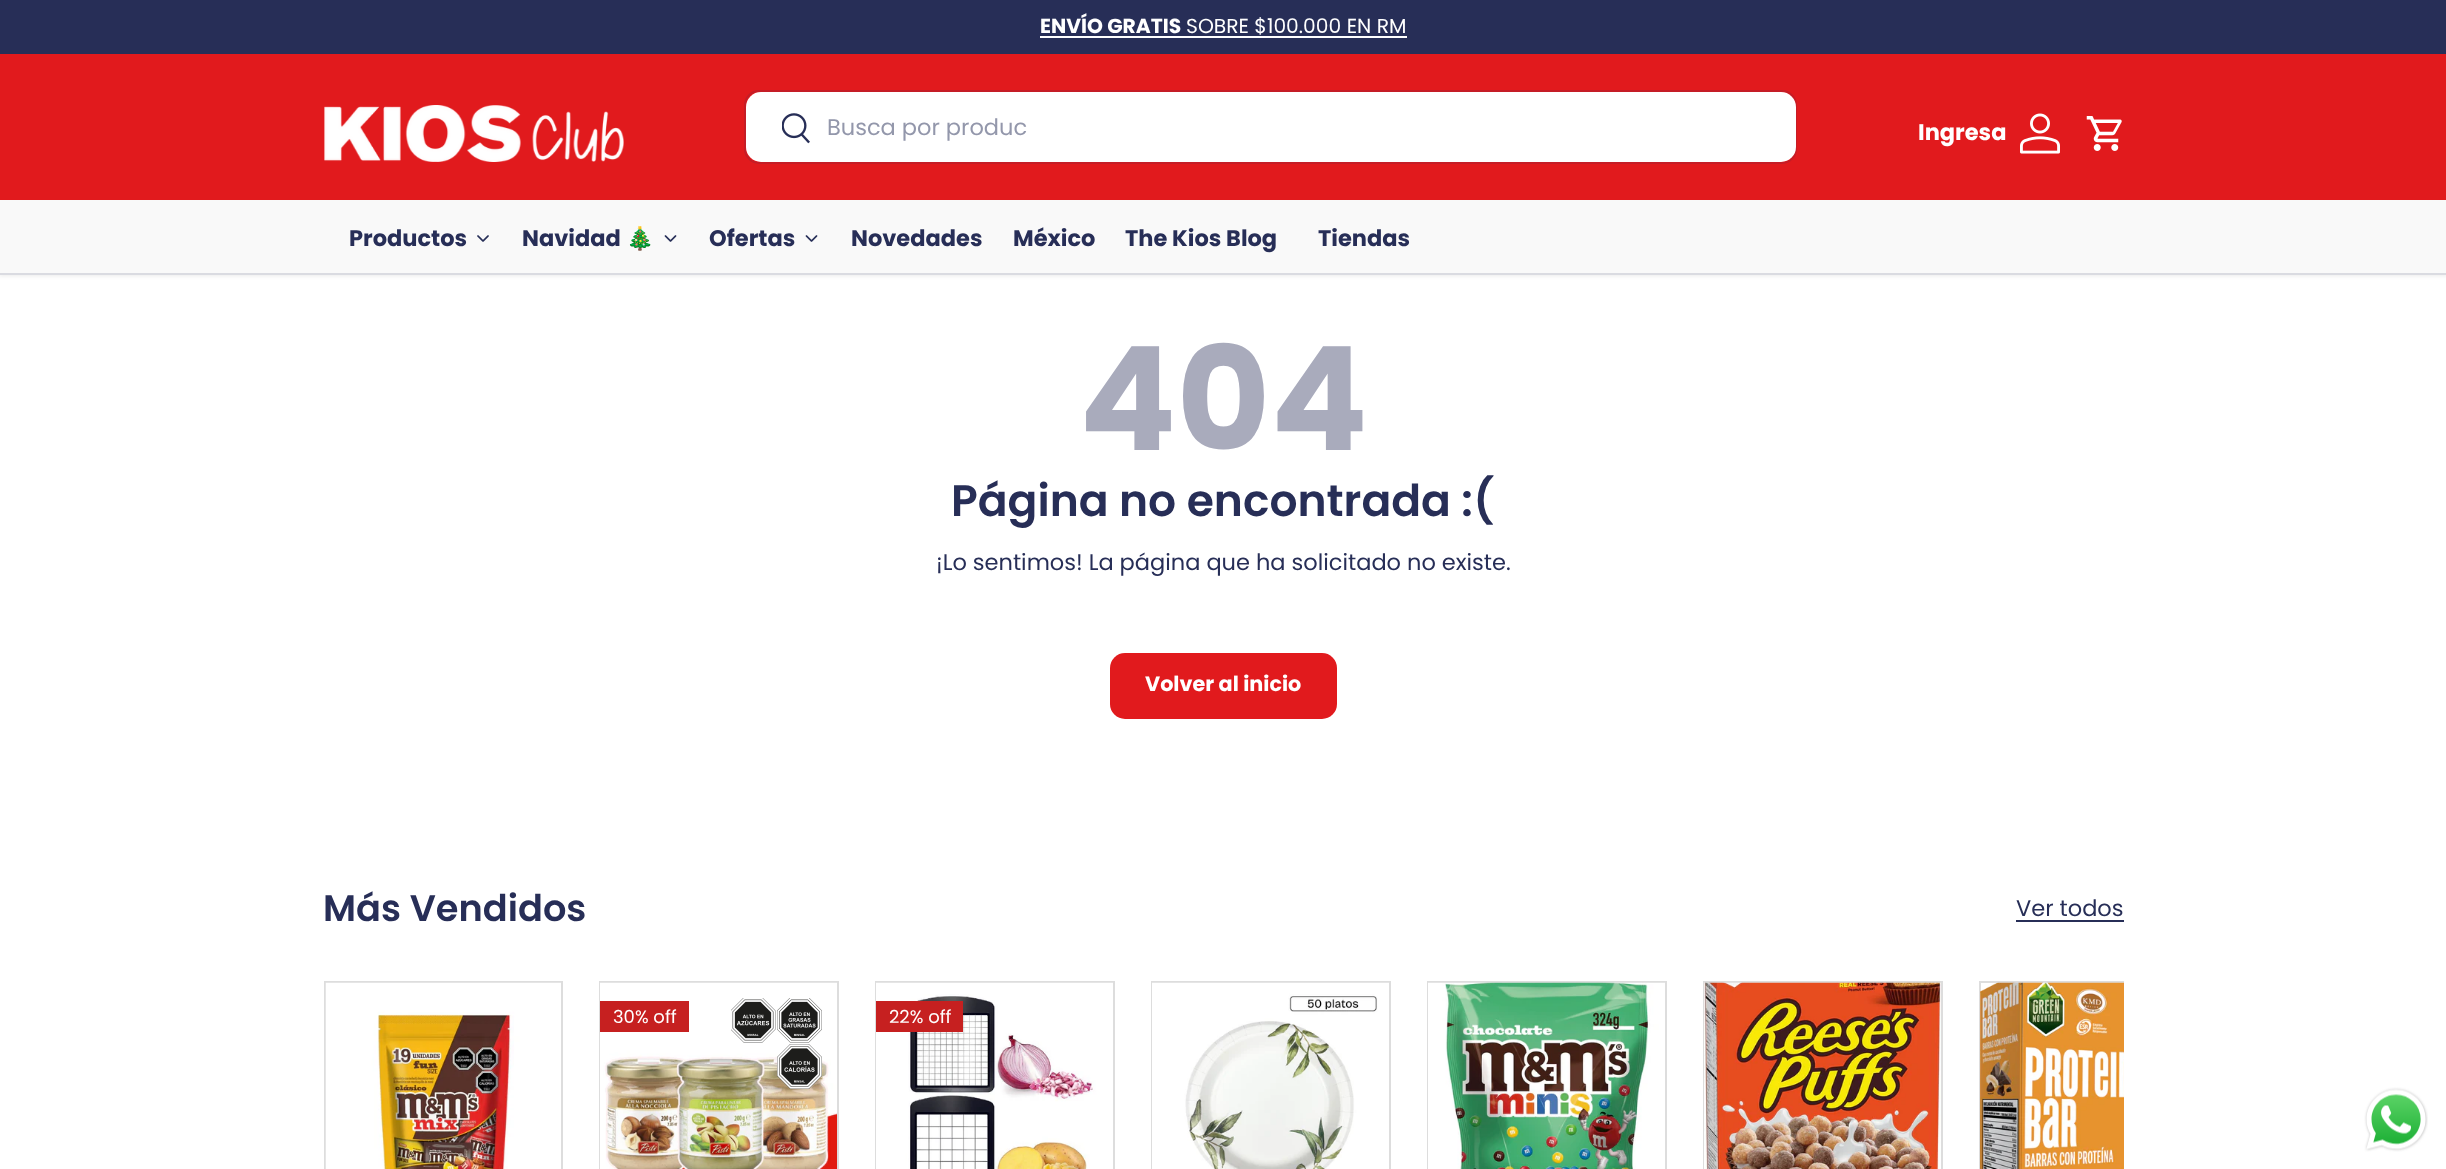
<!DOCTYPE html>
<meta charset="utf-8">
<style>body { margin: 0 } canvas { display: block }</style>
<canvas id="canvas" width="2446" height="1169"></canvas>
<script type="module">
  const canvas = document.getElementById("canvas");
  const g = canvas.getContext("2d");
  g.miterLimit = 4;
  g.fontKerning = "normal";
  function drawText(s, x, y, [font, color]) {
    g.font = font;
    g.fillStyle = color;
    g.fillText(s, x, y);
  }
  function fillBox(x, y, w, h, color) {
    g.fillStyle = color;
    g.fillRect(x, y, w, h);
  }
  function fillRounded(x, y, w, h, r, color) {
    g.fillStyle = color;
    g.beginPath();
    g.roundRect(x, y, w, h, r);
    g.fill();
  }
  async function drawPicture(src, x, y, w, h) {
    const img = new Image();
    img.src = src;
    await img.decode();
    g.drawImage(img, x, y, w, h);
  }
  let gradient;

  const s1 = ["bold 20.25px Poppins", "#FFFFFF"];
  const s2 = ["20.25px Poppins", "#FFFFFF"];
  const s3 = ["22.5px Poppins", "#9397AB"];
  const s4 = ["bold 22.5px Poppins", "#FFFFFF"];
  const s5 = ["bold 22.5px Poppins", "#272E57"];
  const s6 = ["bold 22.5px Noto Color Emoji", "#272E57"];
  const s7 = ["bold 144px Poppins", "#A9ABBC"];
  const s8 = ["600 44px Poppins", "#272E57"];
  const s9 = ["22.5px Poppins", "#272E57"];
  const s10 = ["bold 20.75px Poppins", "#FFFFFF"];
  const s11 = ["600 36.75px Poppins", "#272E57"];
  const s12 = ["18px Poppins", "#FFFFFF"];

  fillBox(0, 0, 2446, 1169, "#FFFFFF");
  g.fillStyle = "rgba(0, 0, 0, 0.08)";
  g.filter = "blur(2px)";
  g.beginPath();
  g.rect(-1, 53, 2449, 223);
  g.fill();
  g.filter = "none";
  fillBox(0, 0, 2446, 54, "#272E57");
  drawText("ENVÍO GRATIS", 1040, 33, s1);
  drawText("SOBRE $100.000 EN RM", 1186, 33, s2);
  fillBox(1040, 36, 367, 2, "#FFFFFF");
  fillBox(0, 54, 2446, 146, "#E11A1D");
  await drawPicture("pic1.png", 324, 105, 300, 57);
  g.beginPath();
  g.roundRect(745, 91, 1051, 72, 14);
  g.strokeStyle = "#C51D26";
  g.lineWidth = 2;
  g.stroke();
  fillRounded(746, 92, 1050, 70, 15, "#FFFFFF");
  await drawPicture("pic2.png", 782, 113, 28, 31);
  drawText("Busca por produc", 827, 135, s3);
  drawText("Ingresa", 1918, 140, s4);
  await drawPicture("pic3.png", 2020, 113, 40, 41);
  await drawPicture("pic4.png", 2086, 116, 36, 35);
  fillBox(0, 200, 2446, 73, "#F9F9F9");
  drawText("Productos", 349, 246, s5);
  await drawPicture("pic5.png", 477, 235, 12, 7);
  drawText("Navidad", 522, 246, s5);
  drawText("🎄", 626, 246, s6);
  await drawPicture("pic6.png", 664, 235, 13, 7);
  drawText("Ofertas", 709, 246, s5);
  await drawPicture("pic6.png", 805, 235, 13, 7);
  drawText("Novedades", 851, 246, s5);
  drawText("México", 1013, 246, s5);
  drawText("The Kios Blog", 1125, 246, s5);
  drawText("Tiendas", 1318, 246, s5);
  fillBox(0, 273, 2446, 2, "#DADBE1");
  drawText("404", 1079, 450, s7);
  drawText("Página no encontrada :(", 951, 516, s8);
  drawText("¡Lo sentimos! La página que ha solicitado no existe.", 936, 570, s9);
  gradient = g.createLinearGradient(669, 604, 1324, 767);
  gradient.addColorStop(0.6, "#E84A4C");
  gradient.addColorStop(0.6, "#E11A1D");
  gradient.addColorStop(1, "#E11A1D");
  g.fillStyle = gradient;
  g.beginPath();
  g.roundRect(1110, 653, 227, 66, 15);
  g.fill();
  drawText("Volver al inicio", 1145, 691, s10);
  drawText("Más Vendidos", 323, 921, s11);
  drawText("Ver todos", 2016, 916, s9);
  fillBox(2016, 920, 108, 2, "#272E57");
  g.strokeStyle = "#DDDDDD";
  g.strokeRect(325, 982, 237, 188);
  await drawPicture("pic7.png", 325, 982, 236, 187);
  g.strokeRect(600, 982, 238, 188);
  await drawPicture("pic8.png", 600, 982, 237, 187);
  await drawPicture("pic9.png", 731, 998, 45, 45);
  await drawPicture("pic10.png", 777, 998, 45, 45);
  await drawPicture("pic11.png", 777, 1044, 45, 45);
  fillBox(600, 1001, 89, 31, "#C62020");
  drawText("30% off", 613, 1023, s12);
  g.strokeRect(876, 982, 238, 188);
  await drawPicture("pic12.png", 876, 982, 237, 187);
  fillBox(876, 1001, 87, 31, "#C62020");
  drawText("22% off", 889, 1023, s12);
  g.strokeRect(1152, 982, 238, 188);
  await drawPicture("pic13.png", 1152, 982, 237, 187);
  g.strokeRect(1428, 982, 238, 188);
  await drawPicture("pic14.png", 1428, 982, 237, 187);
  g.strokeRect(1704, 982, 238, 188);
  await drawPicture("pic15.png", 1704, 982, 237, 187);
  g.save();
  g.beginPath();
  g.rect(324, 981, 1800, 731);
  g.clip();
  g.strokeRect(1980, 982, 238, 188);
  g.restore();
  await drawPicture("pic16.png", 1980, 982, 144, 187);
  await drawPicture("pic17.png", 2364, 1087, 64, 65);
</script>
